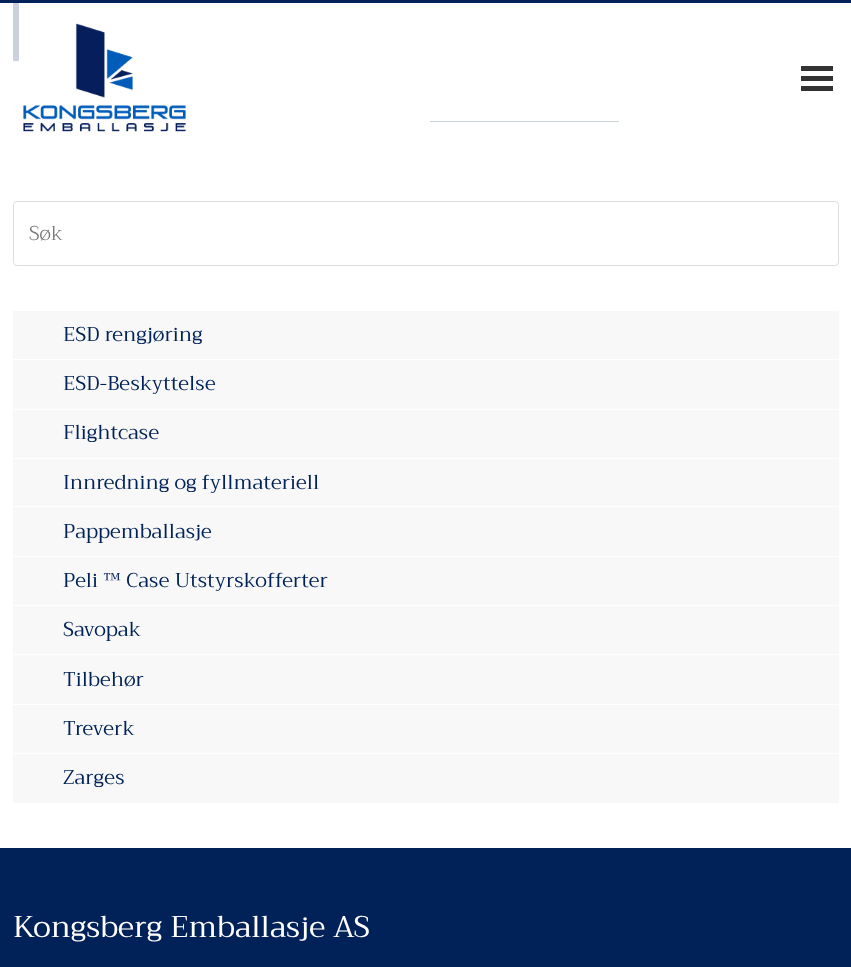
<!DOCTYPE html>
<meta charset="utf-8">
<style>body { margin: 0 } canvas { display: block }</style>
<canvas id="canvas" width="851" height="967"></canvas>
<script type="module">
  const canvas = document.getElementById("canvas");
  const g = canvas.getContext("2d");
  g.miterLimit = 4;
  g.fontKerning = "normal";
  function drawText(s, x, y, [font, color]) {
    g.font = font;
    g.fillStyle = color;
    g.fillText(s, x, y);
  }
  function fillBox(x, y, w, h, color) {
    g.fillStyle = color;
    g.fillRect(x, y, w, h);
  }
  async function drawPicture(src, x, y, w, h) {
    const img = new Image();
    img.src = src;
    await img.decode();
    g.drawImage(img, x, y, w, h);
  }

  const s1 = ["300 20px Trirong", "#757575"];
  const s2 = ["20px Trirong", "#012258"];
  const s3 = ["30px Trirong", "#FFFFFF"];

  fillBox(0, 0, 851, 967, "#FFFFFF");
  fillBox(13, 0, 6, 61, "#012258");
  fillBox(430, 121, 189, 1, "#012258");
  fillBox(13, 3, 606, 119, "rgba(255, 255, 255, 0.8)");
  fillBox(0, 0, 851, 3, "#012258");
  await drawPicture("pic1.png", 23, 23, 163, 109);
  fillBox(801, 66, 32, 5, "#333333");
  fillBox(801, 76, 32, 5, "#333333");
  fillBox(801, 86, 32, 5, "#333333");
  g.beginPath();
  g.roundRect(13.5, 201.5, 825, 64, 3.5);
  g.strokeStyle = "#DDDDDD";
  g.stroke();
  drawText("Søk", 29, 240, s1);
  fillBox(13, 311, 826, 492, "#F8F8F8");
  fillBox(13, 359, 826, 1, "#FFFFFF");
  drawText("ESD rengjøring", 63, 341, s2);
  fillBox(13, 409, 826, 1, "#FFFFFF");
  drawText("ESD-Beskyttelse", 63, 390, s2);
  fillBox(13, 458, 826, 1, "#FFFFFF");
  drawText("Flightcase", 63, 439, s2);
  fillBox(13, 506, 826, 1, "#FFFFFF");
  drawText("Innredning og fyllmateriell", 63, 489, s2);
  fillBox(13, 556, 826, 1, "#FFFFFF");
  drawText("Pappemballasje", 63, 538, s2);
  fillBox(13, 605, 826, 1, "#FFFFFF");
  drawText("Peli ™ Case Utstyrskofferter", 63, 587, s2);
  fillBox(13, 654, 826, 1, "#FFFFFF");
  drawText("Savopak", 63, 636, s2);
  fillBox(13, 704, 826, 1, "#FFFFFF");
  drawText("Tilbehør", 63, 686, s2);
  fillBox(13, 753, 826, 1, "#FFFFFF");
  drawText("Treverk", 63, 735, s2);
  drawText("Zarges", 63, 784, s2);
  fillBox(0, 848, 851, 119, "#012258");
  drawText("Kongsberg Emballasje AS", 13, 937, s3);
</script>
